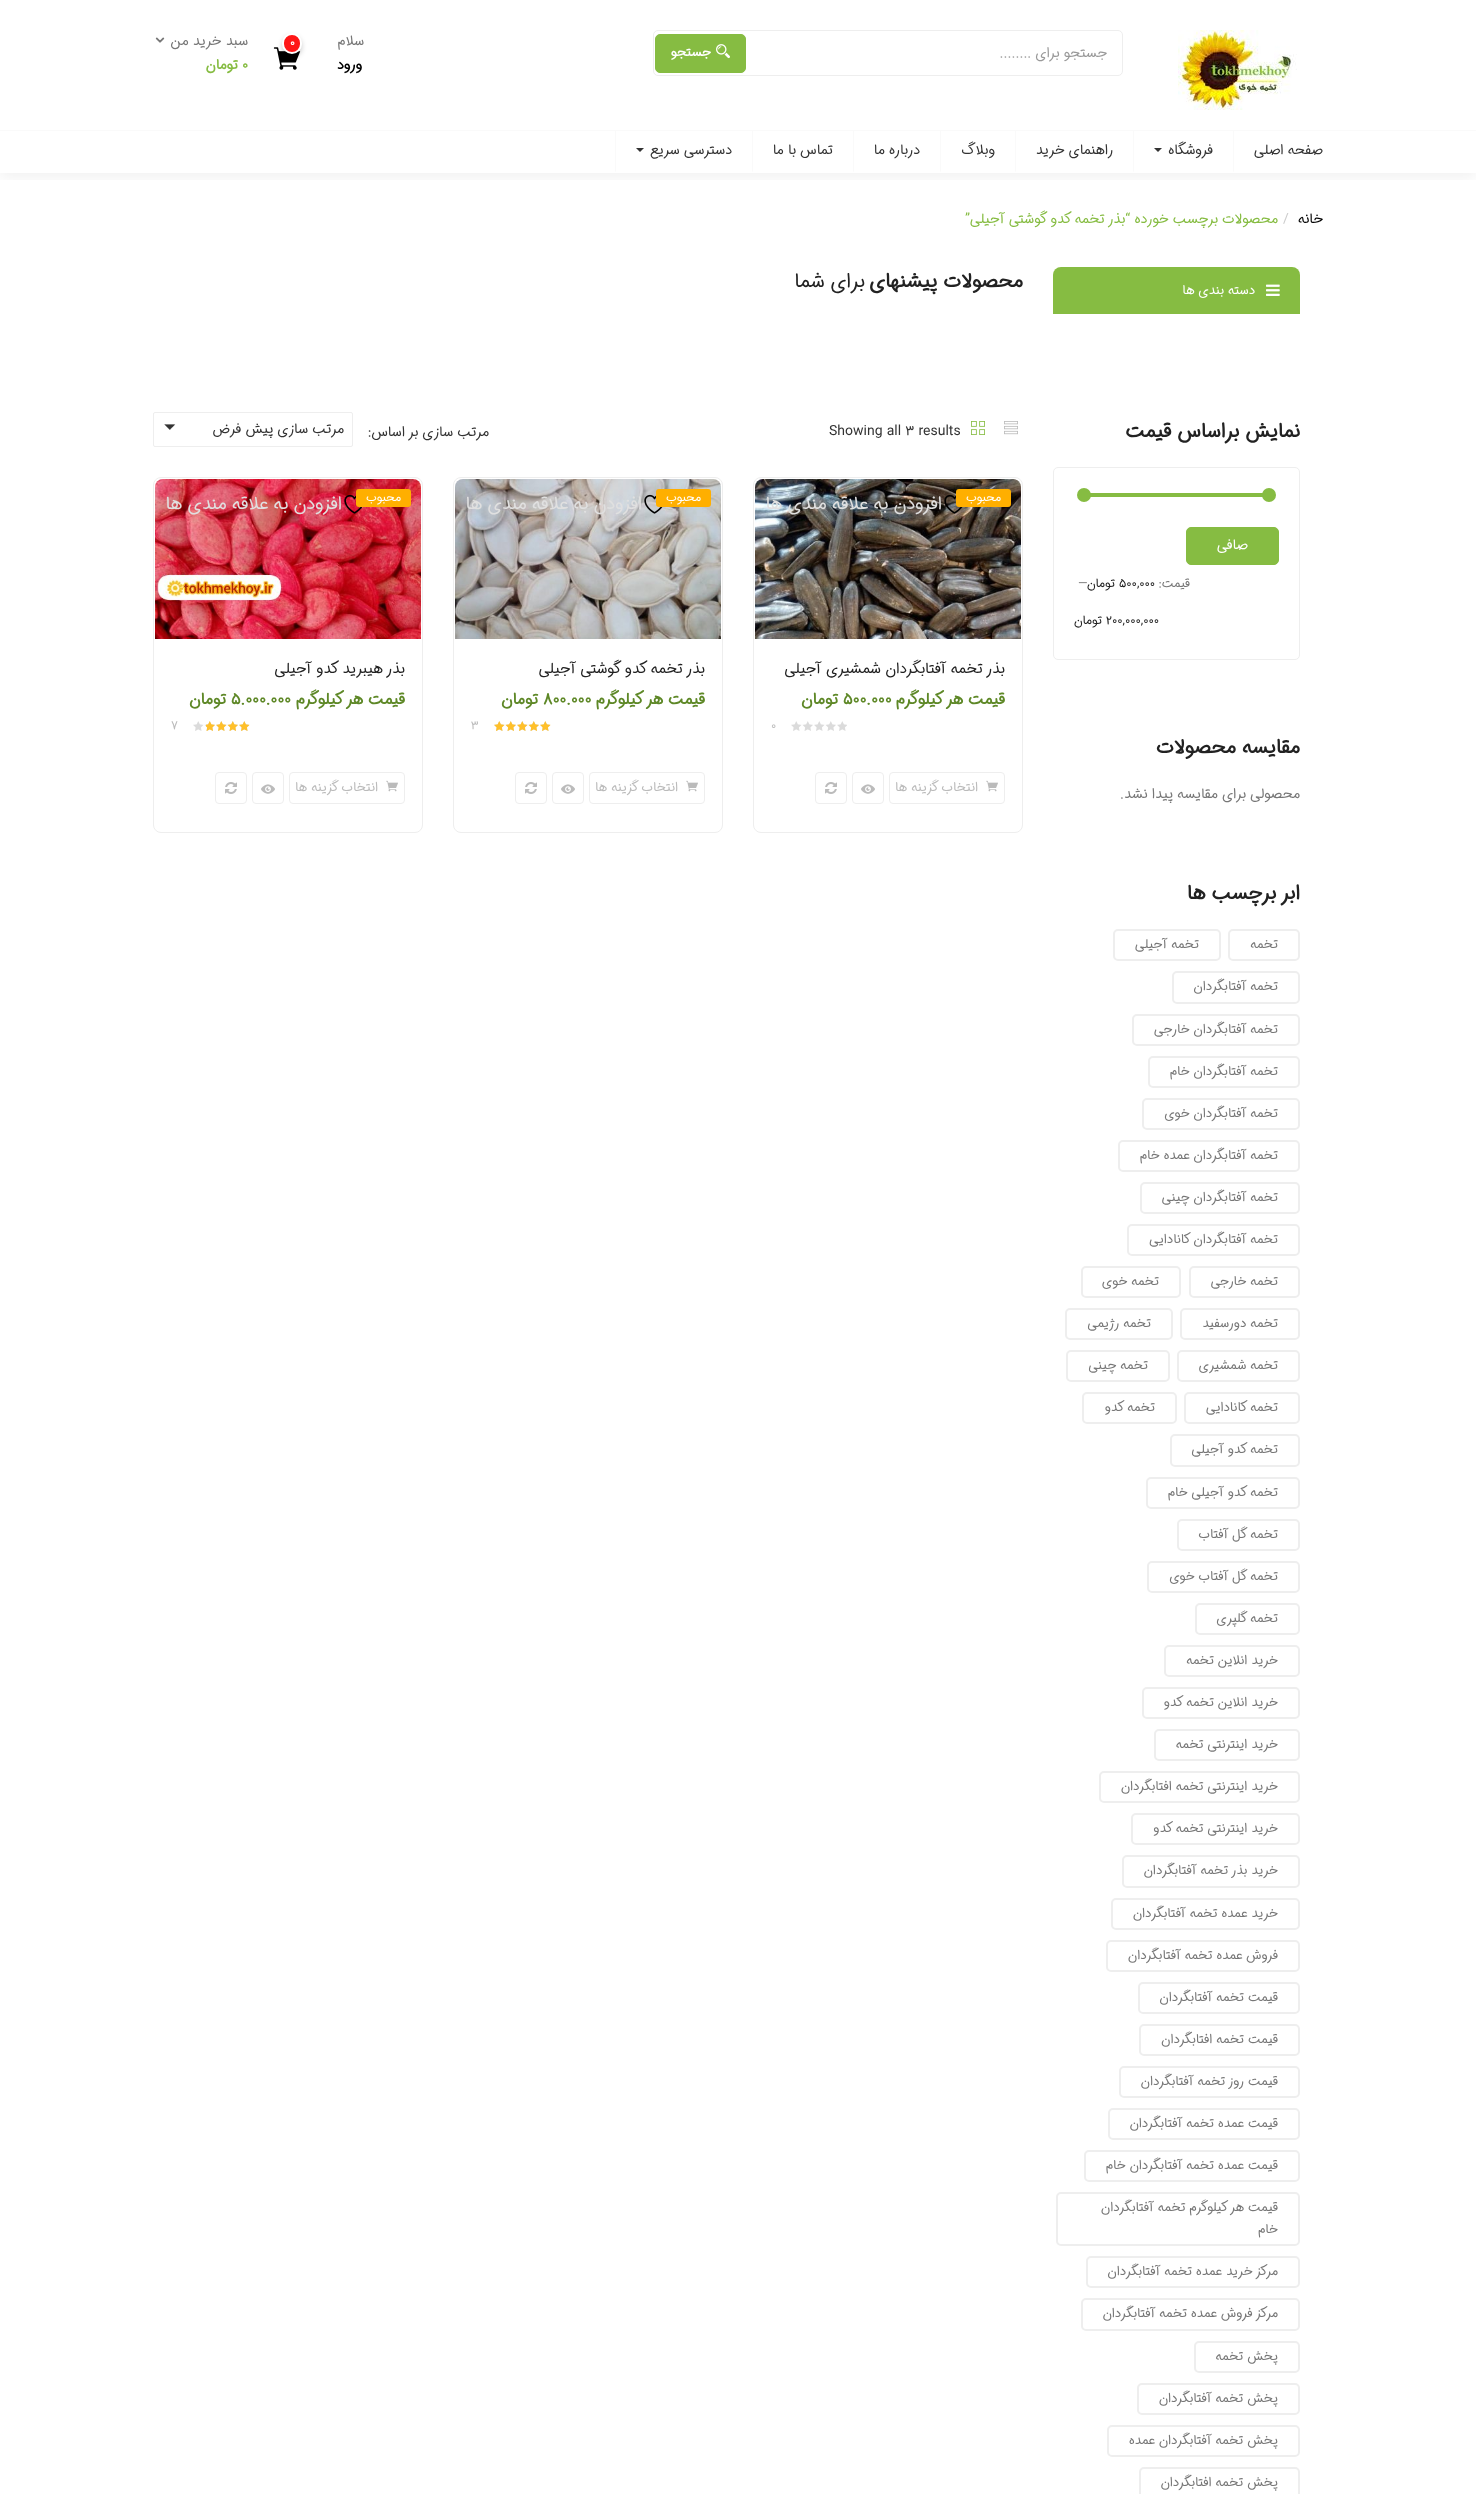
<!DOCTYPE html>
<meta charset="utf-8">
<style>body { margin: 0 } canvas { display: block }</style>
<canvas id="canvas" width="1476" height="2494"></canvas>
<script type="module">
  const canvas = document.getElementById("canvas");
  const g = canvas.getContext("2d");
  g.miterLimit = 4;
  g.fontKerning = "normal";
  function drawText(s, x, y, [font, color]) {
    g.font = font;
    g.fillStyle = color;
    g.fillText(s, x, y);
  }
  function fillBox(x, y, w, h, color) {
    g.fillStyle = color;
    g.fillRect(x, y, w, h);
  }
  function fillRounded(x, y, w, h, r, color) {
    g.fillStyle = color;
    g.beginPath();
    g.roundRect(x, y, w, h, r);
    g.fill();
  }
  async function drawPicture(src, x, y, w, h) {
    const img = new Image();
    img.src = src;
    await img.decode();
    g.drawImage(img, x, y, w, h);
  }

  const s1 = ["14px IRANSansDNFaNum", "#999999"];
  const s2 = ["bold 13px IRANSansDNFaNum", "#FFFFFF"];
  const s3 = ["14px IRANSansDNFaNum", "#777777"];
  const s4 = ["bold 14px IRANSansDNFaNum", "#000000"];
  const s5 = ["bold 11px IRANSansDNFaNum", "#FFFFFF"];
  const s6 = ["bold 14px IRANSansDNFaNum", "#86BC42"];
  const s7 = ["14px IRANSansDNFaNum", "#333333"];
  const s8 = ["14px IRANSansDNFaNum", "#000000"];
  const s9 = ["14px IRANSansDNFaNum", "#CCCCCC"];
  const s10 = ["14px IRANSansDNFaNum", "#86BC42"];
  const s11 = ["13px IRANSansDNFaNum", "#FFFFFF"];
  const s12 = ["bold 20px IRANSansDNFaNum", "#222222"];
  const s13 = ["14px IRANSansDNFaNum", "#FFFFFF"];
  const s14 = ["12.25px IRANSansDNFaNum", "#777777"];
  const s15 = ["12.25px IRANSansDNFaNum", "#222222"];
  const s16 = ["13px IRANSansDNFaNum", "#777777"];
  const s17 = ["20px IRANSansDNFaNum", "#222222"];
  const s18 = ["12px IRANSansDNFaNum", "#FFFFFF"];
  const s19 = ["18px IRANSansDNFaNum", "#E0E0E0"];
  const s20 = ["15px IRANSansDNFaNum", "#222222"];
  const s21 = ["bold 16px IRANSansDNFaNum", "#5E8827"];
  const s22 = ["12px IRANSansDNFaNum", "#BBBBBB"];
  const s23 = ["13px IRANSansDNFaNum", "#BBBBBB"];

  fillBox(0, 0, 1476, 2494, "#FFFFFF");
  g.save();
  g.beginPath();
  g.rect(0, 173, 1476, 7);
  g.clip();
  g.fillStyle = "rgba(0, 0, 0, 0.06)";
  g.filter = "blur(7.5px)";
  g.beginPath();
  g.rect(0, 4, 1476, 173);
  g.fill();
  g.filter = "none";
  g.restore();
  await drawPicture("pic1.png", 1178, 30, 119, 80);
  g.beginPath();
  g.roundRect(653.5, 30.5, 469, 45, 4.5);
  g.strokeStyle = "#EEEEEE";
  g.stroke();
  g.direction = "rtl";
  drawText("جستجو برای ........", 1107, 57, s1);
  g.fillStyle = "#86BC42";
  g.beginPath();
  g.roundRect(655.5, 34.5, 90, 38, 4.5);
  g.fill();
  g.strokeStyle = "#86BC42";
  g.stroke();
  await drawPicture("pic2.png", 716, 44, 14, 15);
  drawText("جستجو", 711, 56, s2);
  drawText("سلام", 364, 45, s3);
  drawText("ورود", 362, 69, s4);
  await drawPicture("pic3.png", 273, 47, 28, 23);
  g.fillStyle = "rgba(0, 0, 0, 0.2)";
  g.filter = "blur(2.5px)";
  g.beginPath();
  g.roundRect(282, 36, 20, 21, 10);
  g.fill();
  g.filter = "none";
  g.fillStyle = "#FF1616";
  g.beginPath();
  g.roundRect(283, 34, 18, 19, 9);
  g.fill();
  g.strokeStyle = "#FFFFFF";
  g.lineWidth = 2;
  g.stroke();
  g.direction = "ltr";
  drawText("0", 290, 46, s5);
  g.direction = "rtl";
  drawText("سبد خرید من", 248, 45, s3);
  await drawPicture("pic4.png", 155, 37, 10, 6);
  g.direction = "ltr";
  drawText("0", 242, 69, s6);
  g.direction = "rtl";
  drawText("تومان", 238, 69, s6);
  fillBox(0, 130, 1476, 1, "#FAFAFA");
  drawText("صفحه اصلی", 1323, 154, s7);
  g.fillStyle = "#FAFAFA";
  g.beginPath();
  g.moveTo(1234, 131);
  g.lineTo(1234, 173);
  g.lineTo(1233, 170);
  g.lineTo(1233, 131);
  g.closePath();
  g.fill();
  drawText("فروشگاه", 1213, 154, s7);
  g.beginPath();
  g.moveTo(1154, 148);
  g.lineTo(1162, 148);
  g.lineTo(1158, 152);
  g.closePath();
  g.fill();
  g.fillStyle = "#FAFAFA";
  g.beginPath();
  g.moveTo(1134, 131);
  g.lineTo(1134, 173);
  g.lineTo(1133, 170);
  g.lineTo(1133, 131);
  g.closePath();
  g.fill();
  drawText("راهنمای خرید", 1113, 154, s7);
  g.fillStyle = "#FAFAFA";
  g.beginPath();
  g.moveTo(1016, 131);
  g.lineTo(1016, 173);
  g.lineTo(1015, 170);
  g.lineTo(1015, 131);
  g.closePath();
  g.fill();
  drawText("وبلاگ", 995, 154, s7);
  g.fillStyle = "#FAFAFA";
  g.beginPath();
  g.moveTo(941, 131);
  g.lineTo(941, 173);
  g.lineTo(940, 170);
  g.lineTo(940, 131);
  g.closePath();
  g.fill();
  drawText("درباره ما", 920, 154, s7);
  g.fillStyle = "#FAFAFA";
  g.beginPath();
  g.moveTo(854, 131);
  g.lineTo(854, 173);
  g.lineTo(853, 170);
  g.lineTo(853, 131);
  g.closePath();
  g.fill();
  drawText("تماس با ما", 833, 154, s7);
  g.fillStyle = "#FAFAFA";
  g.beginPath();
  g.moveTo(753, 131);
  g.lineTo(753, 173);
  g.lineTo(752, 170);
  g.lineTo(752, 131);
  g.closePath();
  g.fill();
  g.beginPath();
  g.moveTo(615, 173);
  g.lineTo(615, 131);
  g.lineTo(616, 131);
  g.lineTo(616, 170);
  g.closePath();
  g.fill();
  drawText("دسترسی سریع", 732, 154, s7);
  g.beginPath();
  g.moveTo(636, 148);
  g.lineTo(644, 148);
  g.lineTo(640, 152);
  g.closePath();
  g.fill();
  drawText("خانه", 1323, 223, s8);
  g.direction = "ltr";
  drawText("/", 1283, 223, s9);
  g.direction = "rtl";
  drawText("محصولات برچسب خورده “بذر تخمه کدو گوشتی آجیلی”", 1278, 223, s10);
  g.beginPath();
  g.roundRect(1053, 267, 247, 47, [8, 8, 0, 0]);
  g.fill();
  await drawPicture("pic5.png", 1266, 284, 14, 12);
  drawText("دسته بندی ها", 1255, 294, s11);
  drawText("نمایش براساس قیمت", 1300, 437, s12);
  g.beginPath();
  g.roundRect(1053.5, 467.5, 246, 192, 4.5);
  g.strokeStyle = "#EEEEEE";
  g.lineWidth = 1;
  g.stroke();
  fillBox(1084, 493, 185, 4, "#86BC42");
  g.beginPath();
  g.arc(1269, 495, 7, 0, Math.PI * 2);
  g.fill();
  g.beginPath();
  g.arc(1084, 495, 7, 0, Math.PI * 2);
  g.fill();
  g.beginPath();
  g.roundRect(1186.5, 527.5, 92, 37, 4.5);
  g.fill();
  g.strokeStyle = "#86BC42";
  g.stroke();
  drawText("صافی", 1248, 549, s13);
  drawText("قيمت:", 1190, 587, s14);
  g.direction = "ltr";
  drawText("500,000", 1119, 587, s15);
  g.direction = "rtl";
  drawText("تومان", 1115, 587, s15);
  g.direction = "ltr";
  drawText("—", 1078, 587, s14);
  drawText("200,000,000", 1106, 624, s15);
  g.direction = "rtl";
  drawText("تومان", 1102, 624, s15);
  drawText("مقایسه محصولات", 1300, 753, s12);
  drawText("محصولی برای مقایسه پیدا نشد.", 1300, 798, s3);
  drawText("ابر برچسب ها", 1300, 899, s12);
  g.beginPath();
  g.roundRect(1229, 930, 70, 30, 4);
  g.strokeStyle = "#EEEEEE";
  g.lineWidth = 2;
  g.stroke();
  drawText("تخمه", 1278, 948, s16);
  g.beginPath();
  g.roundRect(1114, 930, 106, 30, 4);
  g.stroke();
  drawText("تخمه آجیلی", 1199, 948, s16);
  g.beginPath();
  g.roundRect(1173, 972, 126, 31, 4);
  g.stroke();
  drawText("تخمه آفتابگردان", 1278, 990, s16);
  g.beginPath();
  g.roundRect(1133, 1015, 166, 30, 4);
  g.stroke();
  drawText("تخمه آفتابگردان خارجی", 1278, 1033, s16);
  g.beginPath();
  g.roundRect(1149, 1057, 150, 30, 4);
  g.stroke();
  drawText("تخمه آفتابگردان خام", 1278, 1075, s16);
  g.beginPath();
  g.roundRect(1143, 1099, 156, 30, 4);
  g.stroke();
  drawText("تخمه آفتابگردان خوی", 1278, 1117, s16);
  g.beginPath();
  g.roundRect(1119, 1141, 180, 30, 4);
  g.stroke();
  drawText("تخمه آفتابگردان عمده خام", 1278, 1159, s16);
  g.beginPath();
  g.roundRect(1141, 1183, 158, 30, 4);
  g.stroke();
  drawText("تخمه آفتابگردان چینی", 1278, 1201, s16);
  g.beginPath();
  g.roundRect(1128, 1225, 171, 30, 4);
  g.stroke();
  drawText("تخمه آفتابگردان کانادایی", 1278, 1243, s16);
  g.beginPath();
  g.roundRect(1190, 1267, 109, 30, 4);
  g.stroke();
  drawText("تخمه خارجی", 1278, 1285, s16);
  g.beginPath();
  g.roundRect(1082, 1267, 98, 30, 4);
  g.stroke();
  drawText("تخمه خوی", 1159, 1285, s16);
  g.beginPath();
  g.roundRect(1181, 1309, 118, 30, 4);
  g.stroke();
  drawText("تخمه دورسفید", 1278, 1327, s16);
  g.beginPath();
  g.roundRect(1066, 1309, 106, 30, 4);
  g.stroke();
  drawText("تخمه رژیمی", 1151, 1327, s16);
  g.beginPath();
  g.roundRect(1178, 1351, 121, 30, 4);
  g.stroke();
  drawText("تخمه شمشیری", 1278, 1369, s16);
  g.beginPath();
  g.roundRect(1067, 1351, 102, 30, 4);
  g.stroke();
  drawText("تخمه چینی", 1148, 1369, s16);
  g.beginPath();
  g.roundRect(1185, 1393, 114, 30, 4);
  g.stroke();
  drawText("تخمه کانادایی", 1278, 1411, s16);
  g.beginPath();
  g.roundRect(1083, 1393, 93, 30, 4);
  g.stroke();
  drawText("تخمه کدو", 1155, 1411, s16);
  g.beginPath();
  g.roundRect(1171, 1435, 128, 31, 4);
  g.stroke();
  drawText("تخمه کدو آجیلی", 1278, 1453, s16);
  g.beginPath();
  g.roundRect(1147, 1478, 152, 30, 4);
  g.stroke();
  drawText("تخمه کدو آجیلی خام", 1278, 1496, s16);
  g.beginPath();
  g.roundRect(1178, 1520, 121, 30, 4);
  g.stroke();
  drawText("تخمه گل آفتاب", 1278, 1538, s16);
  g.beginPath();
  g.roundRect(1148, 1562, 151, 30, 4);
  g.stroke();
  drawText("تخمه گل آفتاب خوی", 1278, 1580, s16);
  g.beginPath();
  g.roundRect(1196, 1604, 103, 30, 4);
  g.stroke();
  drawText("تخمه گلپری", 1278, 1622, s16);
  g.beginPath();
  g.roundRect(1165, 1646, 134, 30, 4);
  g.stroke();
  drawText("خرید انلاین تخمه", 1278, 1664, s16);
  g.beginPath();
  g.roundRect(1143, 1688, 156, 30, 4);
  g.stroke();
  drawText("خرید انلاین تخمه کدو", 1278, 1706, s16);
  g.beginPath();
  g.roundRect(1155, 1730, 144, 30, 4);
  g.stroke();
  drawText("خرید اینترنتی تخمه", 1278, 1748, s16);
  g.beginPath();
  g.roundRect(1100, 1772, 199, 30, 4);
  g.stroke();
  drawText("خرید اینترنتی تخمه افتابگردان", 1278, 1790, s16);
  g.beginPath();
  g.roundRect(1132, 1814, 167, 30, 4);
  g.stroke();
  drawText("خرید اینترنتی تخمه کدو", 1278, 1832, s16);
  g.beginPath();
  g.roundRect(1123, 1856, 176, 31, 4);
  g.stroke();
  drawText("خرید بذر تخمه آفتابگردان", 1278, 1874, s16);
  g.beginPath();
  g.roundRect(1112, 1899, 187, 30, 4);
  g.stroke();
  drawText("خرید عمده تخمه آفتابگردان", 1278, 1917, s16);
  g.beginPath();
  g.roundRect(1107, 1941, 192, 30, 4);
  g.stroke();
  drawText("فروش عمده تخمه آفتابگردان", 1278, 1959, s16);
  g.beginPath();
  g.roundRect(1139, 1983, 160, 30, 4);
  g.stroke();
  drawText("قیمت تخمه آفتابگردان", 1278, 2001, s16);
  g.beginPath();
  g.roundRect(1140, 2025, 159, 30, 4);
  g.stroke();
  drawText("قیمت تخمه افتابگردان", 1278, 2043, s16);
  g.beginPath();
  g.roundRect(1120, 2067, 179, 30, 4);
  g.stroke();
  drawText("قیمت روز تخمه آفتابگردان", 1278, 2085, s16);
  g.beginPath();
  g.roundRect(1109, 2109, 190, 30, 4);
  g.stroke();
  drawText("قیمت عمده تخمه آفتابگردان", 1278, 2127, s16);
  g.beginPath();
  g.roundRect(1085, 2151, 214, 30, 4);
  g.stroke();
  drawText("قیمت عمده تخمه آفتابگردان خام", 1278, 2169, s16);
  g.beginPath();
  g.roundRect(1057, 2193, 242, 52, 4);
  g.stroke();
  drawText("قیمت هر کیلوگرم تخمه آفتابگردان", 1278, 2211, s16);
  drawText("خام", 1278, 2233, s16);
  g.beginPath();
  g.roundRect(1087, 2257, 212, 30, 4);
  g.stroke();
  drawText("مرکز خرید عمده تخمه آفتابگردان", 1278, 2275, s16);
  g.beginPath();
  g.roundRect(1082, 2299, 217, 31, 4);
  g.stroke();
  drawText("مرکز فروش عمده تخمه آفتابگردان", 1278, 2317, s16);
  g.beginPath();
  g.roundRect(1195, 2342, 104, 30, 4);
  g.stroke();
  drawText("پخش تخمه", 1278, 2360, s16);
  g.beginPath();
  g.roundRect(1138, 2384, 161, 30, 4);
  g.stroke();
  drawText("پخش تخمه آفتابگردان", 1278, 2402, s16);
  g.beginPath();
  g.roundRect(1108, 2426, 191, 30, 4);
  g.stroke();
  drawText("پخش تخمه آفتابگردان عمده", 1278, 2444, s16);
  g.beginPath();
  g.roundRect(1140, 2468, 159, 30, 4);
  g.stroke();
  drawText("پخش تخمه افتابگردان", 1278, 2486, s16);
  drawText("محصولات پیشنهای", 1023, 287, s12);
  drawText("برای شما", 865, 287, s17);
  await drawPicture("pic6.png", 1004, 421, 14, 14);
  await drawPicture("pic7.png", 971, 421, 14, 14);
  g.direction = "ltr";
  drawText("Showing all 3 results", 829, 435, s7);
  g.direction = "rtl";
  drawText("مرتب سازی بر اساس:", 489, 436, s7);
  g.beginPath();
  g.roundRect(153.5, 412.5, 199, 34, 1.5);
  g.lineWidth = 1;
  g.stroke();
  drawText("مرتب سازی پیش فرض", 344, 433, s7);
  await drawPicture("pic8.png", 164, 424, 12, 6);
  g.beginPath();
  g.roundRect(753.5, 477.5, 269, 355, 7.5);
  g.stroke();
  await drawPicture("pic9.png", 755, 479, 266, 160);
  await drawPicture("pic10.png", 944, 495, 19, 19);
  fillRounded(956, 489, 55, 18, 3, "#FFAF00");
  drawText("محبوب", 1001, 501, s18);
  drawText("افزودن به علاقه مندی ها", 942, 509, s19);
  drawText("بذر تخمه آفتابگردان شمشیری آجیلی", 1005, 673, s20);
  drawText("قیمت هر کیلوگرم", 1005, 704, s21);
  g.direction = "ltr";
  drawText("500.000", 843, 704, s21);
  g.direction = "rtl";
  drawText("تومان", 838, 704, s21);
  await drawPicture("pic11.png", 791, 721, 56, 10);
  g.direction = "ltr";
  drawText("0", 771, 729, s22);
  g.beginPath();
  g.roundRect(889.5, 772.5, 115, 31, 3.5);
  g.stroke();
  await drawPicture("pic12.png", 986, 780, 12, 12);
  g.direction = "rtl";
  drawText("انتخاب گزینه ها", 978, 791, s23);
  g.beginPath();
  g.roundRect(852.5, 772.5, 31, 31, 3.5);
  g.stroke();
  await drawPicture("pic13.png", 861, 784, 14, 10);
  g.beginPath();
  g.roundRect(815.5, 772.5, 31, 31, 3.5);
  g.stroke();
  await drawPicture("pic14.png", 825, 782, 12, 12);
  g.beginPath();
  g.roundRect(453.5, 477.5, 269, 355, 7.5);
  g.stroke();
  await drawPicture("pic15.png", 455, 479, 266, 160);
  await drawPicture("pic16.png", 644, 494, 19, 20);
  fillRounded(656, 489, 55, 18, 3, "#FFAF00");
  drawText("محبوب", 701, 501, s18);
  drawText("افزودن به علاقه مندی ها", 642, 509, s19);
  drawText("بذر تخمه کدو گوشتی آجیلی", 705, 673, s20);
  drawText("قیمت هر کیلوگرم", 705, 704, s21);
  g.direction = "ltr";
  drawText("800.000", 543, 704, s21);
  g.direction = "rtl";
  drawText("تومان", 538, 704, s21);
  await drawPicture("pic11.png", 494, 721, 56, 10);
  await drawPicture("pic17.png", 494, 721, 57, 10);
  g.direction = "ltr";
  drawText("3", 471, 729, s22);
  g.beginPath();
  g.roundRect(589.5, 772.5, 115, 31, 3.5);
  g.stroke();
  await drawPicture("pic12.png", 686, 780, 12, 12);
  g.direction = "rtl";
  drawText("انتخاب گزینه ها", 678, 791, s23);
  g.beginPath();
  g.roundRect(552.5, 772.5, 31, 31, 3.5);
  g.stroke();
  await drawPicture("pic13.png", 561, 784, 14, 10);
  g.beginPath();
  g.roundRect(515.5, 772.5, 31, 31, 3.5);
  g.stroke();
  await drawPicture("pic14.png", 525, 782, 12, 12);
  g.beginPath();
  g.roundRect(153.5, 477.5, 269, 355, 7.5);
  g.stroke();
  await drawPicture("pic18.png", 155, 479, 266, 160);
  await drawPicture("pic19.png", 344, 494, 19, 20);
  fillRounded(356, 489, 55, 18, 3, "#FFAF00");
  drawText("محبوب", 401, 501, s18);
  drawText("افزودن به علاقه مندی ها", 342, 509, s19);
  drawText("بذر هیبرید کدو آجیلی", 405, 673, s20);
  drawText("قیمت هر کیلوگرم", 405, 704, s21);
  g.direction = "ltr";
  drawText("5.000.000", 231, 704, s21);
  g.direction = "rtl";
  drawText("تومان", 226, 704, s21);
  await drawPicture("pic11.png", 193, 721, 56, 10);
  await drawPicture("pic20.png", 206, 721, 44, 10);
  g.direction = "ltr";
  drawText("7", 171, 729, s22);
  g.beginPath();
  g.roundRect(289.5, 772.5, 115, 31, 3.5);
  g.stroke();
  await drawPicture("pic12.png", 386, 780, 12, 12);
  g.direction = "rtl";
  drawText("انتخاب گزینه ها", 378, 791, s23);
  g.beginPath();
  g.roundRect(252.5, 772.5, 31, 31, 3.5);
  g.stroke();
  await drawPicture("pic13.png", 261, 784, 14, 10);
  g.beginPath();
  g.roundRect(215.5, 772.5, 31, 31, 3.5);
  g.stroke();
  await drawPicture("pic14.png", 225, 782, 12, 12);
</script>
